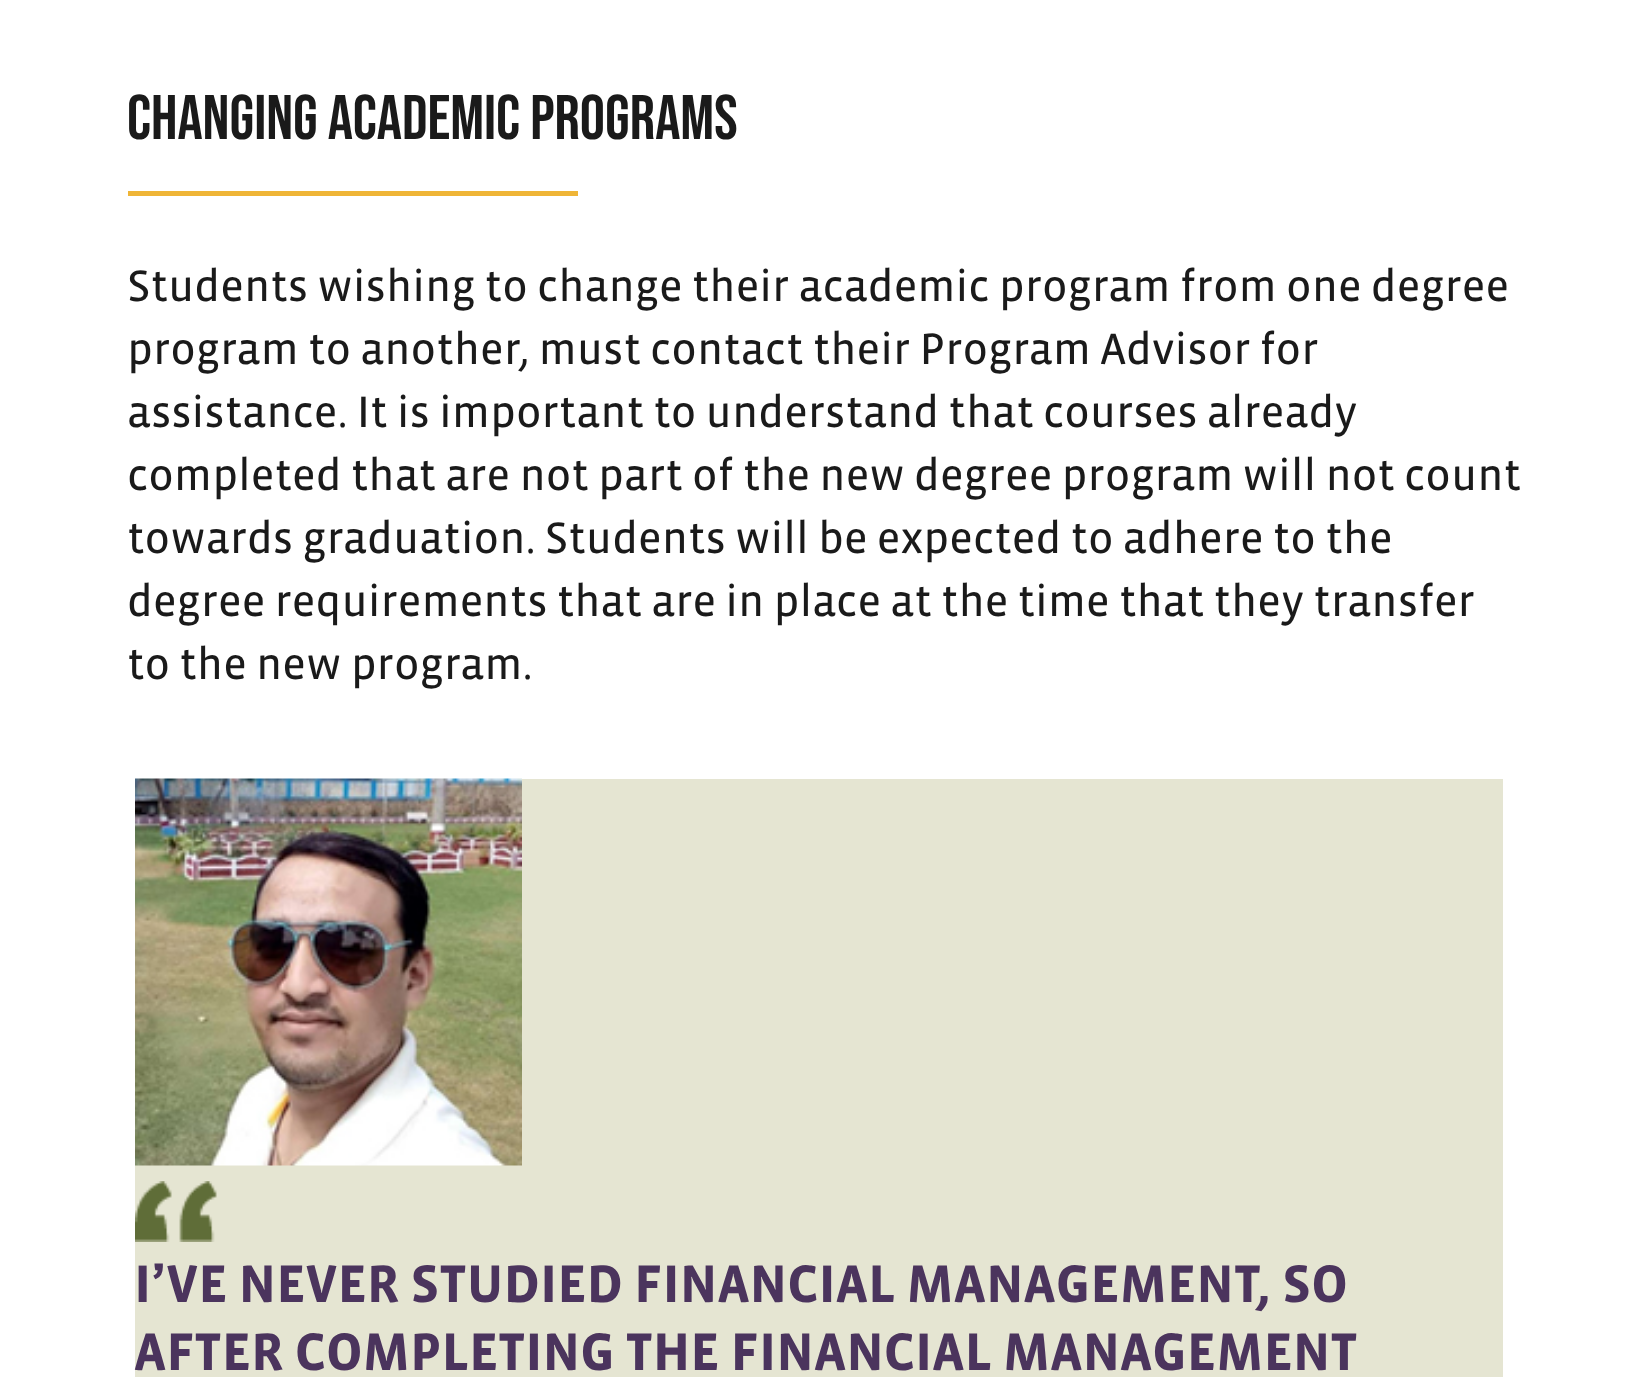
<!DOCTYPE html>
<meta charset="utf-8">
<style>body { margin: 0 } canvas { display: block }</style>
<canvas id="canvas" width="1652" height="1377"></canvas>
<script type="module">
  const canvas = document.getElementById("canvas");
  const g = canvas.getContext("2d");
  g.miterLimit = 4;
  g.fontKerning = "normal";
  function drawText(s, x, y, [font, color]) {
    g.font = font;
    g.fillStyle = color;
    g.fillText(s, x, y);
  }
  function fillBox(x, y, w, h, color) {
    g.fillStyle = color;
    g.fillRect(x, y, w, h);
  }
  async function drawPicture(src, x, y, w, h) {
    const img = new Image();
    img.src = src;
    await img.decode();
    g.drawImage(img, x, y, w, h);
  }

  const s1 = ["bold 63px Bebas Neue", "#1A1A1A"];
  const s2 = ["500 45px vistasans", "#1A1A1A"];
  const s3 = ["bold 54px vistasans", "#4B345D"];

  fillBox(0, 0, 1652, 1377, "#FFFFFF");
  drawText("CHANGING ACADEMIC PROGRAMS", 127, 139, s1);
  fillBox(128, 191, 450, 5, "#EFB537");
  drawText("Students wishing to change their academic program from one degree", 127, 301, s2);
  drawText("program to another, must contact their Program Advisor for", 127, 364, s2);
  drawText("assistance. It is important to understand that courses already", 127, 427, s2);
  drawText("completed that are not part of the new degree program will not count", 127, 490, s2);
  drawText("towards graduation. Students will be expected to adhere to the", 127, 553, s2);
  drawText("degree requirements that are in place at the time that they transfer", 127, 616, s2);
  drawText("to the new program.", 127, 679, s2);
  fillBox(135, 779, 1368, 598, "#E5E5D2");
  await drawPicture("pic1.png", 135, 778, 387, 388);
  await drawPicture("pic2.png", 135, 1181, 82, 61);
  drawText("I’VE NEVER STUDIED FINANCIAL MANAGEMENT, SO", 134, 1302, s3);
  drawText("AFTER COMPLETING THE FINANCIAL MANAGEMENT", 134, 1370, s3);
</script>
